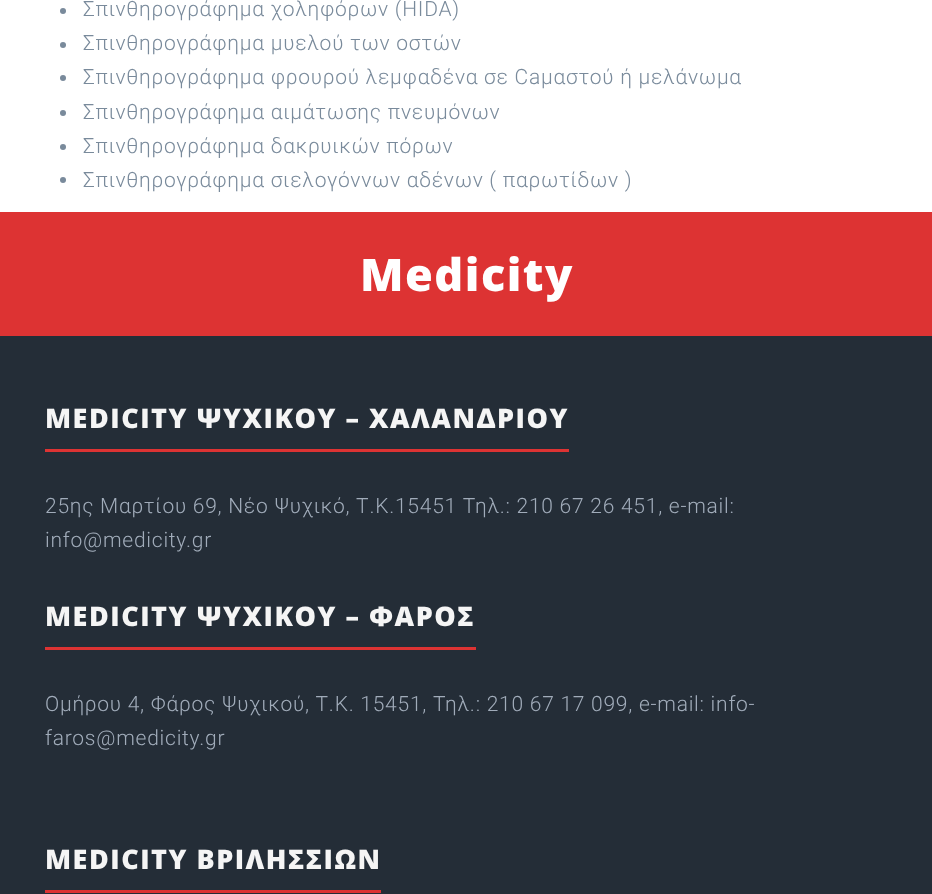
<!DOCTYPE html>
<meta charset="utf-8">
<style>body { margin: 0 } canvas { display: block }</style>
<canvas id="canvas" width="932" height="894"></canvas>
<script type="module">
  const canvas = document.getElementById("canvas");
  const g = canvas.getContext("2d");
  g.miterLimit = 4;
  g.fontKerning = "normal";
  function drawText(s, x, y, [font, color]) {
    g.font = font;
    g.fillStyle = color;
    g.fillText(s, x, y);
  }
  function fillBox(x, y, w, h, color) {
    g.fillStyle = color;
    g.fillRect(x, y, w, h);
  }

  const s1 = ["300 21px Roboto", "#798A9B"];
  const s2 = ["800 45px Open Sans", "#FFFFFF"];
  const s3 = ["800 27px Open Sans", "#F5F5F5"];
  const s4 = ["300 21px Roboto", "#A1ACBA"];

  fillBox(0, 0, 932, 894, "#FFFFFF");
  g.fillStyle = "#798A9B";
  g.beginPath();
  g.arc(63, 11, 3, 0, Math.PI * 2);
  g.fill();
  g.letterSpacing = "0.75px";
  drawText("Σπινθηρογράφημα χοληφόρων (HIDA)", 83, 16, s1);
  g.beginPath();
  g.arc(63, 45, 3, 0, Math.PI * 2);
  g.fill();
  drawText("Σπινθηρογράφημα μυελού των οστών", 83, 50, s1);
  g.beginPath();
  g.arc(63, 78, 3, 0, Math.PI * 2);
  g.fill();
  drawText("Σπινθηρογράφημα φρουρού λεμφαδένα σε Caμαστού ή μελάνωμα", 83, 84, s1);
  g.beginPath();
  g.arc(63, 113, 3, 0, Math.PI * 2);
  g.fill();
  drawText("Σπινθηρογράφημα αιμάτωσης πνευμόνων", 83, 119, s1);
  g.beginPath();
  g.arc(63, 147, 3, 0, Math.PI * 2);
  g.fill();
  drawText("Σπινθηρογράφημα δακρυικών πόρων", 83, 153, s1);
  g.beginPath();
  g.arc(63, 180, 3, 0, Math.PI * 2);
  g.fill();
  drawText("Σπινθηρογράφημα σιελογόννων αδένων ( παρωτίδων )", 83, 187, s1);
  fillBox(0, 212, 932, 124, "#DD3333");
  g.letterSpacing = "1.5px";
  drawText("Medicity", 360, 291, s2);
  fillBox(0, 336, 932, 558, "#242D37");
  fillBox(45, 449, 524, 3, "#DD3333");
  drawText("MEDICITY ΨΥΧΙΚΟΥ – ΧΑΛΑΝΔΡΙΟΥ", 45, 428, s3);
  g.letterSpacing = "0.75px";
  drawText("25ης Μαρτίου 69, Νέο Ψυχικό, Τ.Κ.15451 Τηλ.: 210 67 26 451, e-mail:", 45, 513, s4);
  drawText("info@medicity.gr", 45, 547, s4);
  fillBox(45, 647, 431, 3, "#DD3333");
  g.letterSpacing = "1.5px";
  drawText("MEDICITY ΨΥΧΙΚΟΥ – ΦΑΡΟΣ", 45, 626, s3);
  g.letterSpacing = "0.75px";
  drawText("Ομήρου 4, Φάρος Ψυχικού, Τ.Κ. 15451, Τηλ.: 210 67 17 099, e-mail: info-", 45, 711, s4);
  drawText("faros@medicity.gr", 45, 745, s4);
  fillBox(45, 890, 336, 3, "#DD3333");
  g.letterSpacing = "1.5px";
  drawText("MEDICITY ΒΡΙΛΗΣΣΙΩΝ", 45, 869, s3);
</script>
